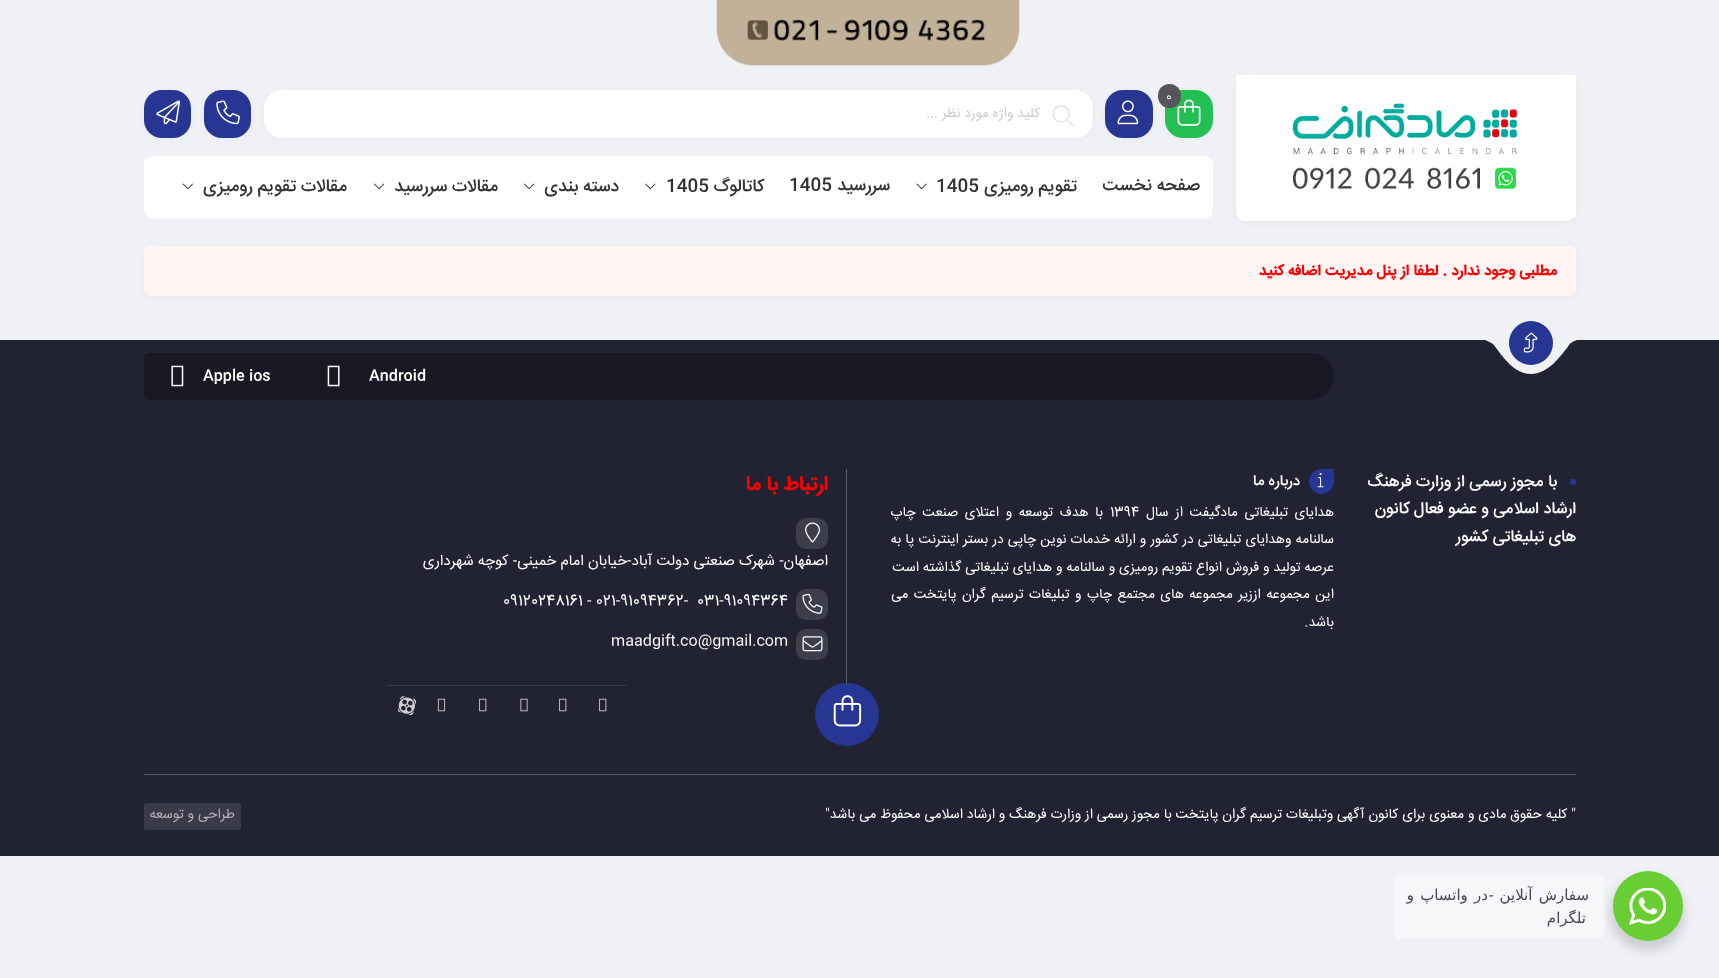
<!DOCTYPE html>
<meta charset="utf-8">
<style>body { margin: 0 } canvas { display: block }</style>
<canvas id="canvas" width="1719" height="978"></canvas>
<script type="module">
  const canvas = document.getElementById("canvas");
  const g = canvas.getContext("2d");
  g.miterLimit = 4;
  g.fontKerning = "normal";
  function drawText(s, x, y, [font, color]) {
    g.font = font;
    g.fillStyle = color;
    g.fillText(s, x, y);
  }
  function fillBox(x, y, w, h, color) {
    g.fillStyle = color;
    g.fillRect(x, y, w, h);
  }
  function fillRounded(x, y, w, h, r, color) {
    g.fillStyle = color;
    g.beginPath();
    g.roundRect(x, y, w, h, r);
    g.fill();
  }
  async function drawPicture(src, x, y, w, h) {
    const img = new Image();
    img.src = src;
    await img.decode();
    g.drawImage(img, x, y, w, h);
  }

  const s1 = ["12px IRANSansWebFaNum", "#FFFFFF"];
  const s2 = ["13.75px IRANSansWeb", "#CBCCD2"];
  const s3 = ["500 17.5px IRANSansWeb", "#333333"];
  const s4 = ["bold 15px IRANSansWeb", "#FF0000"];
  const s5 = ["500 15px IRANSansWeb", "#FFFFFF"];
  const s6 = ["500 16.25px IRANSansWeb", "#FFFFFF"];
  const s7 = ["13.75px IRANSansWebFaNum", "#FFFFFF"];
  const s8 = ["bold 20px IRANSansWeb", "#FF0000"];
  const s9 = ["15px IRANSansWebFaNum", "#FFFFFF"];
  const s10 = ["13.75px IRANSansWeb", "#FFFFFF"];
  const s11 = ["13.75px IRANSansWeb", "#B0B1B6"];
  const s12 = ["15px DejaVu Sans", "#43474E"];

  fillBox(0, 0, 1719, 978, "#EFF1F5");
  await drawPicture("pic1.png", 716, 0, 304, 66);
  g.fillStyle = "rgba(0, 0, 0, 0.1)";
  g.filter = "blur(4.5px)";
  g.beginPath();
  g.roundRect(1240, 80, 333, 139, 5);
  g.fill();
  g.filter = "none";
  g.fillStyle = "#FFFFFF";
  g.beginPath();
  g.roundRect(1236, 75, 340, 146, [0, 0, 9, 9]);
  g.fill();
  await drawPicture("pic2.png", 1292, 103, 226, 86);
  g.fillStyle = "rgba(0, 0, 0, 0.1)";
  g.filter = "blur(4.5px)";
  g.beginPath();
  g.roundRect(1169, 95, 40, 40, 14);
  g.fill();
  g.filter = "none";
  fillRounded(1165, 90, 48, 48, 18, "#23BF53");
  await drawPicture("pic3.png", 1177, 99, 24, 27);
  g.fillStyle = "rgba(0, 0, 0, 0.1)";
  g.filter = "blur(4.5px)";
  g.beginPath();
  g.roundRect(1109, 95, 40, 40, 14);
  g.fill();
  g.filter = "none";
  fillRounded(1158, 84, 23, 24, 11.5, "#55555A");
  drawText("0", 1166, 100, s1);
  fillRounded(1105, 90, 48, 48, 18, "#273693");
  await drawPicture("pic4.png", 1117, 100, 22, 25);
  g.fillStyle = "rgba(0, 0, 0, 0.1)";
  g.filter = "blur(4.5px)";
  g.beginPath();
  g.roundRect(208, 95, 40, 40, 14);
  g.fill();
  g.filter = "none";
  fillRounded(204, 90, 47, 48, 18, "#273693");
  await drawPicture("pic5.png", 216, 100, 24, 25);
  g.fillStyle = "rgba(0, 0, 0, 0.1)";
  g.filter = "blur(4.5px)";
  g.beginPath();
  g.roundRect(148, 95, 40, 40, 14);
  g.fill();
  g.filter = "none";
  fillRounded(144, 90, 47, 48, 18, "#273693");
  await drawPicture("pic6.png", 156, 100, 24, 25);
  g.fillStyle = "rgba(0, 0, 0, 0.1)";
  g.filter = "blur(4.5px)";
  g.beginPath();
  g.roundRect(268, 95, 821, 40, 14);
  g.fill();
  g.filter = "none";
  fillRounded(264, 90, 829, 48, 18, "#FFFFFF");
  await drawPicture("pic7.png", 1052, 105, 22, 22);
  g.direction = "rtl";
  drawText("کلید واژه مورد نظر ...", 1040, 117, s2);
  fillRounded(144, 156, 1069, 63, 9, "#FFFFFF");
  drawText("صفحه نخست", 1200, 190, s3);
  drawText("تقویم رومیزی", 1077, 191, s3);
  g.direction = "ltr";
  drawText("1405", 936, 191, s3);
  await drawPicture("pic8.png", 916, 183, 11, 7);
  g.direction = "rtl";
  drawText("سررسید", 890, 190, s3);
  g.direction = "ltr";
  drawText("1405", 789, 190, s3);
  g.direction = "rtl";
  drawText("کاتالوگ", 764, 191, s3);
  g.direction = "ltr";
  drawText("1405", 666, 191, s3);
  await drawPicture("pic9.png", 645, 183, 11, 7);
  g.direction = "rtl";
  drawText("دسته بندی", 619, 191, s3);
  await drawPicture("pic10.png", 524, 183, 11, 7);
  drawText("مقالات سررسید", 498, 191, s3);
  await drawPicture("pic10.png", 374, 183, 11, 7);
  drawText("مقالات تقویم رومیزی", 347, 191, s3);
  await drawPicture("pic11.png", 182, 183, 11, 7);
  g.fillStyle = "rgba(0, 0, 0, 0.1)";
  g.filter = "blur(4.5px)";
  g.beginPath();
  g.roundRect(148, 251, 1425, 43, 2.5);
  g.fill();
  g.filter = "none";
  fillRounded(144, 246, 1432, 50, 6, "#FFF5F5");
  drawText("مطلبی وجود ندارد . لطفا از پنل مدیریت اضافه کنید", 1557, 275, s4);
  fillBox(0, 340, 1719, 516, "#222332");
  g.fillStyle = "#EFF1F5";
  g.beginPath();
  g.moveTo(1577, 340);
  g.bezierCurveTo(1574, 341, 1570, 343, 1569, 345);
  g.bezierCurveTo(1561, 356, 1548, 374, 1531, 374);
  g.bezierCurveTo(1514, 374, 1502, 356, 1494, 345);
  g.bezierCurveTo(1492, 343, 1488, 341, 1485, 340);
  g.closePath();
  g.fill("evenodd");
  g.fillStyle = "#273693";
  g.beginPath();
  g.arc(1531, 343, 22, 0, Math.PI * 2);
  g.fill();
  await drawPicture("pic12.png", 1523, 332, 15, 21);
  g.fillStyle = "#181924";
  g.beginPath();
  g.roundRect(144, 353, 1190, 47, [5, 23.5, 23.5, 5]);
  g.fill();
  g.direction = "ltr";
  drawText("Android", 369, 380, s5);
  await drawPicture("pic13.png", 327, 365, 13, 22);
  drawText("Apple ios", 203, 380, s5);
  await drawPicture("pic14.png", 171, 365, 13, 22);
  fillRounded(1570, 479, 6, 6, 2.5, "#273693");
  g.direction = "rtl";
  drawText("با مجوز رسمی از وزارت فرهنگ", 1557, 486, s6);
  drawText("ارشاد اسلامی و عضو فعال کانون", 1576, 513, s6);
  drawText("های تبلیغاتی کشور", 1576, 541, s6);
  g.fillStyle = "#273693";
  g.beginPath();
  g.roundRect(1309, 469, 25, 25, [12.5, 0, 12.5, 12.5]);
  g.fill();
  await drawPicture("pic15.png", 1317, 473, 7, 15);
  drawText("درباره ما", 1300, 485, s5);
  g.wordSpacing = "2.75px";
  drawText("هدایای تبلیغاتی مادگیفت از سال", 1334, 516, s7);
  g.wordSpacing = "0px";
  g.direction = "ltr";
  drawText("1394", 1110, 516, s7);
  g.wordSpacing = "2.75px";
  g.direction = "rtl";
  drawText("با هدف توسعه و اعتلای صنعت چاپ", 1103, 516, s7);
  g.wordSpacing = "0.25px";
  drawText("سالنامه وهدایای تبلیغاتی در کشور و ارائه خدمات نوین چاپی در بستر اینترنت پا به", 1334, 543, s7);
  g.wordSpacing = "0px";
  drawText("عرصه تولید و فروش انواع تقویم رومیزی و سالنامه و هدایای تبلیغاتی گذاشته است", 1334, 571, s7);
  g.wordSpacing = "1.6px";
  drawText("این مجموعه اززیر مجموعه های مجتمع چاپ و تبلیغات ترسیم گران پایتخت می", 1334, 598, s7);
  g.wordSpacing = "0px";
  drawText("باشد.", 1334, 626, s7);
  fillBox(846, 469, 1, 214, "#595A65");
  drawText("ارتباط با ما", 828, 490, s8);
  fillRounded(796, 518, 32, 31, 10, "#3D3D4B");
  await drawPicture("pic16.png", 805, 522, 15, 21);
  drawText("اصفهان- شهرک صنعتی دولت آباد-خیابان امام خمینی- کوچه شهرداری", 828, 565, s9);
  fillRounded(796, 589, 32, 31, 10, "#3D3D4B");
  await drawPicture("pic17.png", 802, 593, 21, 21);
  g.direction = "ltr";
  drawText("031-91094364", 697, 605, s9);
  drawText("09120248161 - 021-91094362-", 503, 605, s9);
  fillRounded(796, 629, 32, 31, 10, "#3D3D4B");
  await drawPicture("pic18.png", 802, 636, 21, 16);
  drawText("maadgift.co@gmail.com", 611, 645, s9);
  fillRounded(815, 683, 64, 63, 31.5, "#273693");
  await drawPicture("pic19.png", 833, 695, 29, 32);
  fillBox(386, 685, 240, 1, "#383947");
  await drawPicture("pic20.png", 599, 698, 8, 14);
  await drawPicture("pic20.png", 559, 698, 8, 14);
  await drawPicture("pic21.png", 520, 698, 8, 14);
  await drawPicture("pic20.png", 479, 698, 8, 14);
  await drawPicture("pic22.png", 437, 698, 9, 14);
  await drawPicture("pic23.png", 398, 696, 18, 19);
  fillBox(144, 774, 1432, 1, "#595A65");
  g.direction = "rtl";
  drawText("\" کلیه حقوق مادی و معنوی برای کانون آگهی وتبلیغات ترسیم گران پایتخت با مجوز رسمی از وزارت فرهنگ و ارشاد اسلامی محفوظ می باشد\"", 1576, 818, s10);
  fillRounded(144, 803, 97, 27, 2.5, "#3A3B49");
  drawText("طراحی و توسعه", 235, 818, s11);
  g.fillStyle = "rgba(0, 0, 0, 0.14)";
  g.filter = "blur(5px)";
  g.beginPath();
  g.roundRect(1610, 876, 75, 75, 37.5);
  g.fill();
  g.filter = "none";
  g.fillStyle = "#69CE33";
  g.beginPath();
  g.arc(1648, 906, 35, 0, Math.PI * 2);
  g.fill();
  await drawPicture("pic24.png", 1629, 888, 37, 37);
  fillRounded(1394, 874, 210, 65, 5, "#F5F7F9");
  g.letterSpacing = "-0.5px";
  g.wordSpacing = "2px";
  drawText("سفارش آنلاین -", 1589, 900, s12);
  drawText("در واتساپ و", 1488, 900, s12);
  g.wordSpacing = "0px";
  drawText("تلگرام", 1586, 923, s12);
</script>
